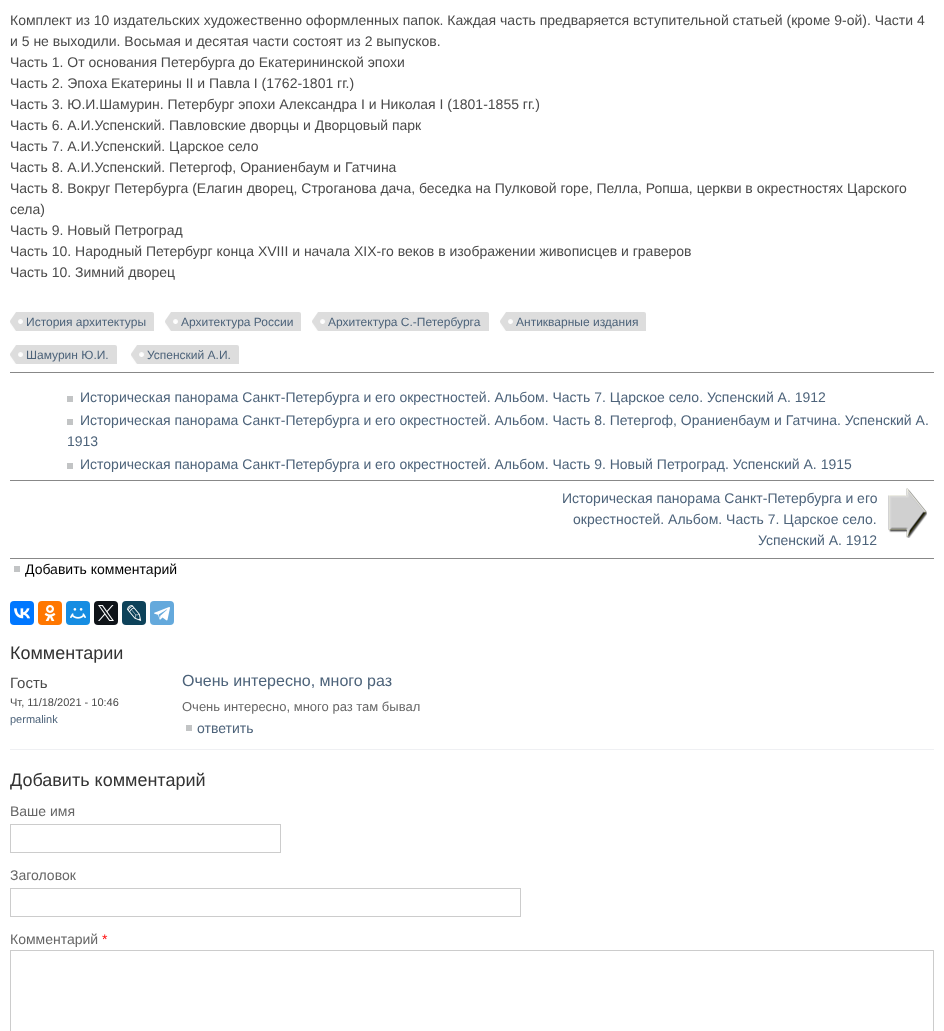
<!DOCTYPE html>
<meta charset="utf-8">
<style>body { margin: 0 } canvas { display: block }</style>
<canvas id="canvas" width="944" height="1031"></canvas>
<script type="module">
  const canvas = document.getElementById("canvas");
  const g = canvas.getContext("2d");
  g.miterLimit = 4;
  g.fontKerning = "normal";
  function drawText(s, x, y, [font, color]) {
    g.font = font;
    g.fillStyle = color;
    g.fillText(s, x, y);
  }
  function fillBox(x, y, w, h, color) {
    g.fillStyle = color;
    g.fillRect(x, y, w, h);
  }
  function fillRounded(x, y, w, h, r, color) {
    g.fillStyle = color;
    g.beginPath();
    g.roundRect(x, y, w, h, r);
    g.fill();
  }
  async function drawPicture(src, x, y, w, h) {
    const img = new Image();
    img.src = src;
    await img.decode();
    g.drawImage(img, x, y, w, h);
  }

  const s1 = ["14px Liberation Sans", "#4A4A4A"];
  const s2 = ["12px Liberation Sans", "#4D637A"];
  const s3 = ["14px Liberation Sans", "#4D637A"];
  const s4 = ["14px Liberation Sans", "#000000"];
  const s5 = ["18px Liberation Sans", "#333333"];
  const s6 = ["15px Liberation Sans", "#4A4A4A"];
  const s7 = ["11px Liberation Sans", "#4A4A4A"];
  const s8 = ["11px Liberation Sans", "#4D637A"];
  const s9 = ["16px Liberation Sans", "#4D637A"];
  const s10 = ["13px Liberation Sans", "#666666"];
  const s11 = ["14px Liberation Sans", "#666666"];
  const s12 = ["14px Liberation Sans", "#FF0000"];

  fillBox(0, 0, 944, 1031, "#FFFFFF");
  drawText("Комплект из 10 издательских художественно оформленных папок. Каждая часть предваряется вступительной статьей (кроме 9-ой). Части 4", 10, 25, s1);
  drawText("и 5 не выходили. Восьмая и десятая части состоят из 2 выпусков.", 10, 46, s1);
  drawText("Часть 1. От основания Петербурга до Екатерининской эпохи", 10, 67, s1);
  drawText("Часть 2. Эпоха Екатерины II и Павла I (1762-1801 гг.)", 10, 88, s1);
  drawText("Часть 3. Ю.И.Шамурин. Петербург эпохи Александра I и Николая I (1801-1855 гг.)", 10, 109, s1);
  drawText("Часть 6. А.И.Успенский. Павловские дворцы и Дворцовый парк", 10, 130, s1);
  drawText("Часть 7. А.И.Успенский. Царское село", 10, 151, s1);
  drawText("Часть 8. А.И.Успенский. Петергоф, Ораниенбаум и Гатчина", 10, 172, s1);
  drawText("Часть 8. Вокруг Петербурга (Елагин дворец, Строганова дача, беседка на Пулковой горе, Пелла, Ропша, церкви в окрестностях Царского", 10, 193, s1);
  drawText("села)", 10, 214, s1);
  drawText("Часть 9. Новый Петроград", 10, 235, s1);
  drawText("Часть 10. Народный Петербург конца XVIII и начала XIX-го веков в изображении живописцев и граверов", 10, 256, s1);
  drawText("Часть 10. Зимний дворец", 10, 277, s1);
  await drawPicture("pic1.png", 10, 312, 144, 19);
  drawText("История архитектуры", 26, 326, s2);
  await drawPicture("pic2.png", 165, 312, 136, 19);
  drawText("Архитектура России", 181, 326, s2);
  await drawPicture("pic3.png", 312, 312, 177, 19);
  drawText("Архитектура С.-Петербурга", 328, 326, s2);
  await drawPicture("pic4.png", 500, 312, 146, 19);
  drawText("Антикварные издания", 516, 326, s2);
  await drawPicture("pic5.png", 10, 345, 107, 19);
  drawText("Шамурин Ю.И.", 26, 359, s2);
  await drawPicture("pic6.png", 131, 345, 108, 19);
  drawText("Успенский А.И.", 147, 359, s2);
  fillBox(10, 372, 924, 1, "#888888");
  fillBox(67, 396, 6, 6, "#C2C4C5");
  drawText("Историческая панорама Санкт-Петербурга и его окрестностей. Альбом. Часть 7. Царское село. Успенский А. 1912", 80, 402, s3);
  fillBox(67, 419, 6, 6, "#C2C4C5");
  drawText("Историческая панорама Санкт-Петербурга и его окрестностей. Альбом. Часть 8. Петергоф, Ораниенбаум и Гатчина. Успенский А.", 80, 425, s3);
  drawText("1913", 67, 446, s3);
  fillBox(67, 463, 6, 6, "#C2C4C5");
  drawText("Историческая панорама Санкт-Петербурга и его окрестностей. Альбом. Часть 9. Новый Петроград. Успенский А. 1915", 80, 469, s3);
  fillBox(10, 480, 924, 1, "#888888");
  fillBox(10, 558, 924, 1, "#888888");
  await drawPicture("pic7.png", 888, 488, 39, 50);
  drawText("Историческая панорама Санкт-Петербурга и его", 562, 503, s3);
  drawText("окрестностей. Альбом. Часть 7. Царское село.", 573, 524, s3);
  drawText("Успенский А. 1912", 758, 545, s3);
  drawText("Добавить комментарий", 25, 574, s4);
  fillBox(14, 566, 6, 6, "#C2C4C5");
  fillRounded(10, 601, 24, 24, 4, "#0077FF");
  await drawPicture("pic8.png", 14, 608, 16, 11);
  fillRounded(38, 601, 24, 24, 4, "#FF7700");
  await drawPicture("pic9.png", 44, 605, 12, 16);
  fillRounded(66, 601, 24, 24, 4, "#168DE2");
  await drawPicture("pic10.png", 70, 608, 16, 11);
  fillRounded(94, 601, 24, 24, 4, "#0F1419");
  await drawPicture("pic11.png", 98, 605, 16, 16);
  fillRounded(122, 601, 24, 24, 4, "#0D425A");
  await drawPicture("pic12.png", 127, 605, 15, 16);
  fillRounded(150, 601, 24, 24, 4, "#64A9DC");
  await drawPicture("pic13.png", 154, 607, 16, 14);
  drawText("Комментарии", 10, 659, s5);
  fillBox(10, 749, 924, 1, "#EFF0F3");
  drawText("Гость", 10, 688, s6);
  drawText("Чт, 11/18/2021 - 10:46", 10, 706, s7);
  drawText("permalink", 10, 723, s8);
  drawText("Очень интересно, много раз", 182, 686, s9);
  drawText("Очень интересно, много раз там бывал", 182, 711, s10);
  drawText("ответить", 197, 733, s3);
  fillBox(186, 725, 6, 6, "#C2C4C5");
  drawText("Добавить комментарий", 10, 786, s5);
  drawText("Ваше имя", 10, 816, s11);
  g.strokeStyle = "#CCCCCC";
  g.strokeRect(10.5, 824.5, 270, 28);
  drawText("Заголовок", 10, 880, s11);
  g.strokeRect(10.5, 888.5, 510, 28);
  drawText("Комментарий", 10, 944, s11);
  drawText("*", 102, 944, s12);
  g.strokeRect(10.5, 950.5, 923, 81);
</script>
